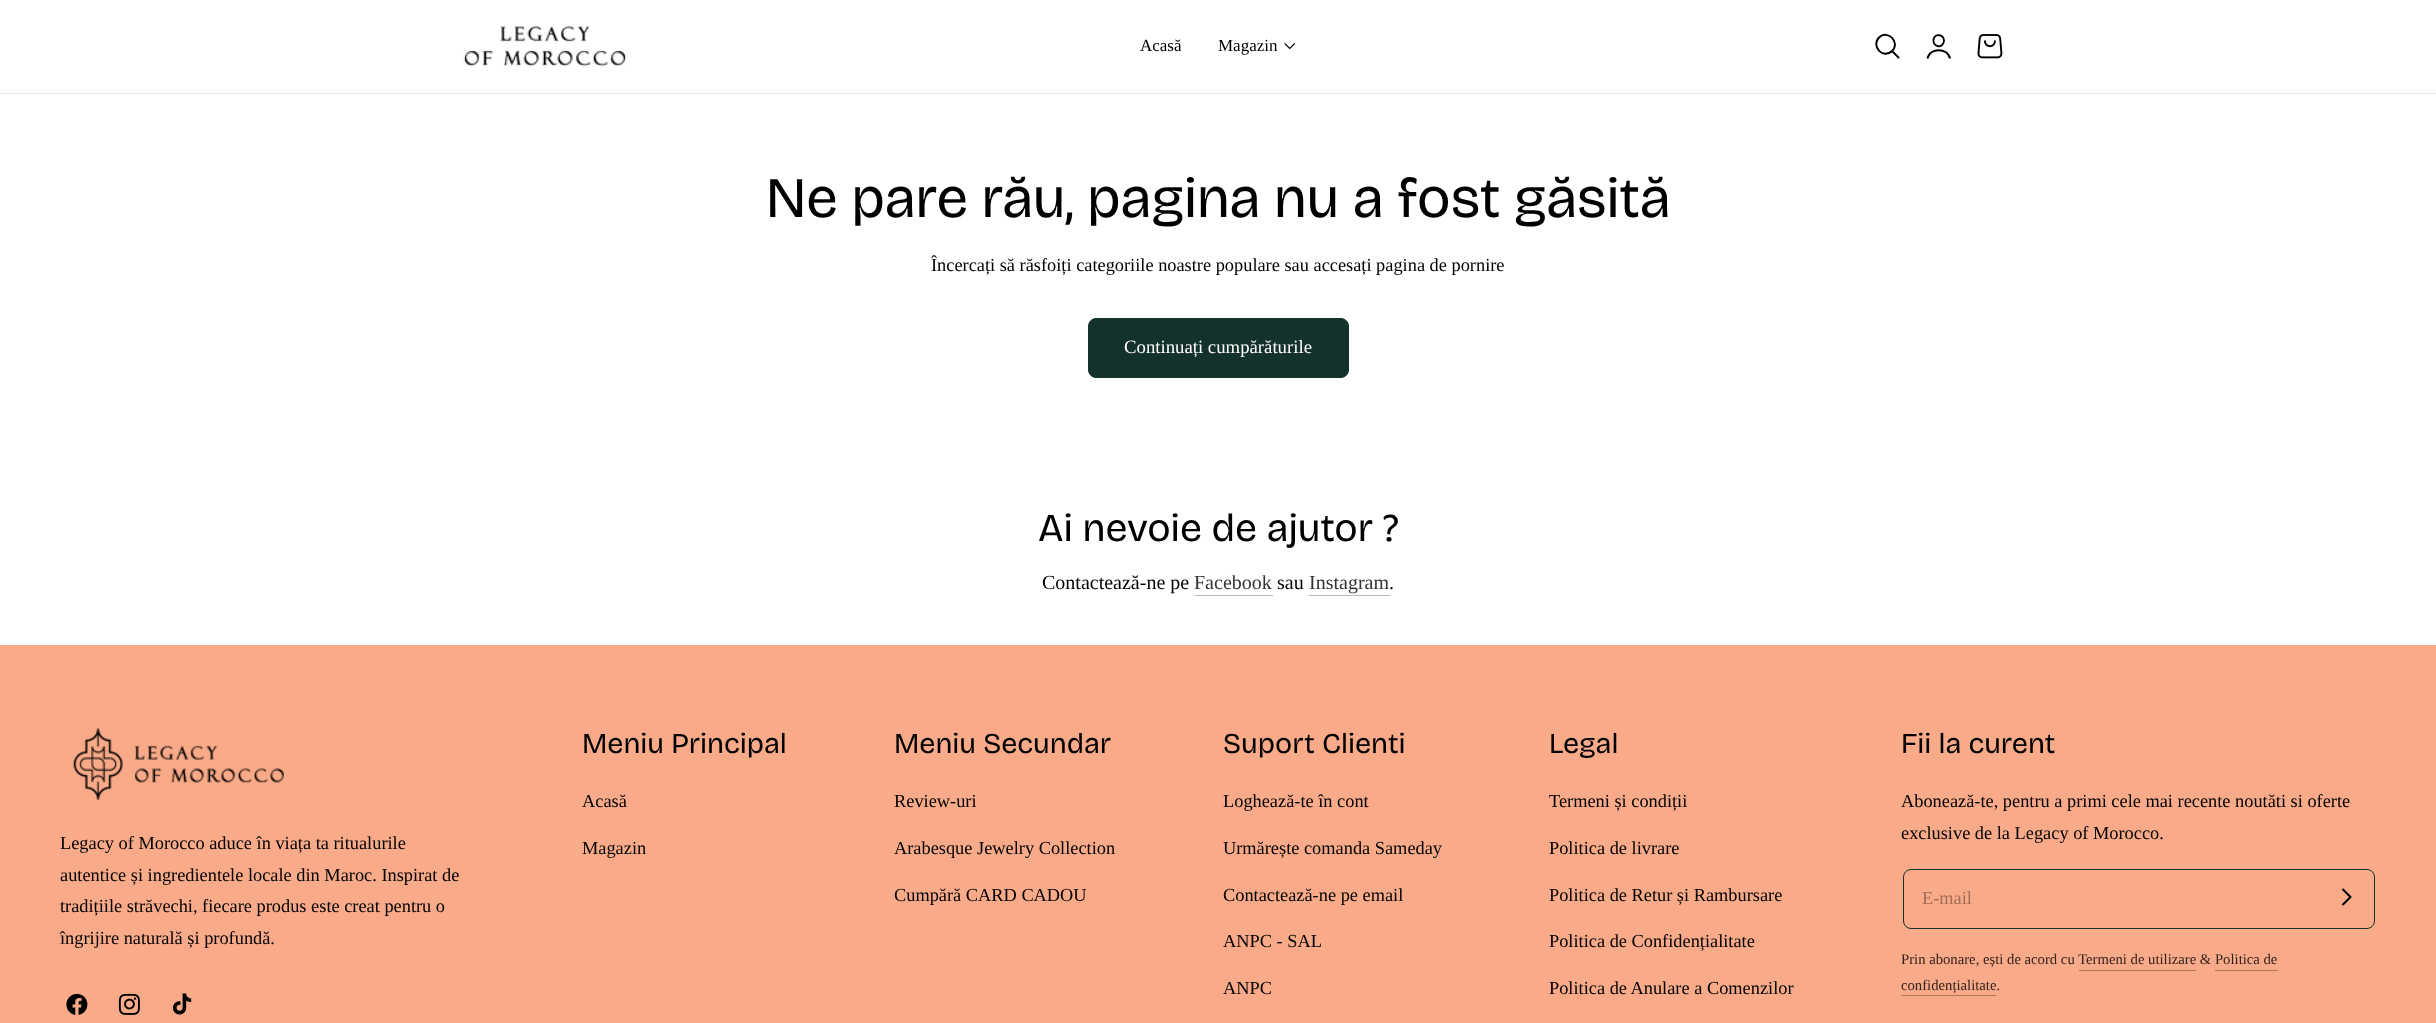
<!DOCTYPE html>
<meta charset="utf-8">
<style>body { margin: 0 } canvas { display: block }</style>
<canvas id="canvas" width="2436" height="1023"></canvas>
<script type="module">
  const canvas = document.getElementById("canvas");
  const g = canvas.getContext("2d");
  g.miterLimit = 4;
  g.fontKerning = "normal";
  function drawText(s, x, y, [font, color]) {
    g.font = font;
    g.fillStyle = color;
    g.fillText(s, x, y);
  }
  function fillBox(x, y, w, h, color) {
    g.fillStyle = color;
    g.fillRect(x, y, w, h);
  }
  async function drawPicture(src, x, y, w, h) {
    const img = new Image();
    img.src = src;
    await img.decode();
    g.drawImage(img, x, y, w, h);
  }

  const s1 = ["17px Liberation Serif", "#000000"];
  const s2 = ["57.4px Bricolage Grotesque", "#000000"];
  const s3 = ["18.35px Liberation Serif", "#000000"];
  const s4 = ["18.75px Liberation Serif", "#FFFFFF"];
  const s5 = ["39.5px 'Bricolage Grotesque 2'", "#000000"];
  const s6 = ["20px Liberation Serif", "#000000"];
  const s7 = ["20px Liberation Serif", "#333333"];
  const s8 = ["28.75px 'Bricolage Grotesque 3'", "#000000"];
  const s9 = ["18.35px Liberation Serif", "#A26E59"];
  const s10 = ["14.7px Liberation Serif", "#32221B"];

  fillBox(0, 0, 2436, 1023, "#FFFFFF");
  fillBox(0, 93, 2436, 1, "#E6E6E6");
  await drawPicture("pic1.png", 463, 25, 163, 42);
  drawText("Acasă", 1140, 51, s1);
  drawText("Magazin", 1218, 51, s1);
  await drawPicture("pic2.png", 1284, 43, 11, 6);
  g.beginPath();
  g.moveTo(1898.5, 57.5);
  g.lineTo(1892, 51);
  g.moveTo(1892, 51);
  g.bezierCurveTo(1901, 42.5, 1887.5, 29, 1879, 37.5);
  g.bezierCurveTo(1870.5, 46.5, 1883.5, 59.5, 1892, 51);
  g.closePath();
  g.strokeStyle = "#000000";
  g.lineWidth = 1.9;
  g.lineCap = "round";
  g.lineJoin = "round";
  g.stroke();
  g.beginPath();
  g.moveTo(1944, 41);
  g.bezierCurveTo(1943, 49, 1932.5, 47.5, 1933.5, 39.5);
  g.bezierCurveTo(1934.5, 33, 1944.5, 34, 1944, 41);
  g.closePath();
  g.stroke();
  g.beginPath();
  g.moveTo(1927.5, 58.5);
  g.bezierCurveTo(1929.5, 47.5, 1948, 47.5, 1950, 58.5);
  g.lineCap = "butt";
  g.lineJoin = "miter";
  g.stroke();
  await drawPicture("pic3.png", 1977, 34, 26, 25);
  drawText("Ne pare rău, pagina nu a fost găsită", 766, 217, s2);
  drawText("Încercați să răsfoiți categoriile noastre populare sau accesați pagina de pornire", 931, 271, s3);
  g.fillStyle = "#13322B";
  g.beginPath();
  g.roundRect(1088.5, 318.5, 260, 59, 7.5);
  g.fill();
  g.strokeStyle = "#13322B";
  g.lineWidth = 1;
  g.stroke();
  drawText("Continuați cumpărăturile", 1124, 353, s4);
  drawText("Ai nevoie de ajutor ?", 1038, 541, s5);
  drawText("Contactează-ne pe", 1042, 589, s6);
  drawText("Facebook", 1194, 589, s7);
  fillBox(1195, 595, 78, 1, "#B3B3B3");
  drawText("sau", 1277, 589, s6);
  drawText("Instagram", 1309, 589, s7);
  fillBox(1309, 595, 81, 1, "#B3B3B3");
  drawText(".", 1389, 589, s6);
  fillBox(0, 645, 2436, 378, "#F9AA89");
  await drawPicture("pic4.png", 73, 728, 211, 72);
  drawText("Legacy of Morocco aduce în viața ta ritualurile", 60, 849, s3);
  drawText("autentice și ingredientele locale din Maroc. Inspirat de", 60, 881, s3);
  drawText("tradițiile străvechi, fiecare produs este creat pentru o", 60, 912, s3);
  drawText("îngrijire naturală și profundă.", 60, 944, s3);
  await drawPicture("pic5.png", 66, 993, 22, 22);
  await drawPicture("pic6.png", 118, 993, 22, 22);
  await drawPicture("pic7.png", 172, 993, 20, 22);
  drawText("Meniu Principal", 582, 753, s8);
  drawText("Acasă", 582, 807, s3);
  drawText("Magazin", 582, 854, s3);
  drawText("Meniu Secundar", 894, 753, s8);
  drawText("Review-uri", 894, 807, s3);
  drawText("Arabesque Jewelry Collection", 894, 854, s3);
  drawText("Cumpără CARD CADOU", 894, 901, s3);
  drawText("Suport Clienti", 1223, 753, s8);
  drawText("Loghează-te în cont", 1223, 807, s3);
  drawText("Urmărește comanda Sameday", 1223, 854, s3);
  drawText("Contactează-ne pe email", 1223, 901, s3);
  drawText("ANPC - SAL", 1223, 947, s3);
  drawText("ANPC", 1223, 994, s3);
  drawText("Legal", 1549, 753, s8);
  drawText("Termeni și condiții", 1549, 807, s3);
  drawText("Politica de livrare", 1549, 854, s3);
  drawText("Politica de Retur și Rambursare", 1549, 901, s3);
  drawText("Politica de Confidențialitate", 1549, 947, s3);
  drawText("Politica de Anulare a Comenzilor", 1549, 994, s3);
  drawText("Fii la curent", 1901, 753, s8);
  drawText("Abonează-te, pentru a primi cele mai recente noutăti si oferte", 1901, 807, s3);
  drawText("exclusive de la Legacy of Morocco.", 1901, 839, s3);
  g.beginPath();
  g.roundRect(1903.5, 869.5, 471, 59, 7.5);
  g.stroke();
  drawText("E-mail", 1922, 904, s9);
  g.beginPath();
  g.moveTo(2343, 889.5);
  g.lineTo(2350.5, 897);
  g.lineTo(2343, 904.5);
  g.strokeStyle = "#000000";
  g.lineWidth = 2;
  g.lineCap = "round";
  g.lineJoin = "round";
  g.stroke();
  drawText("Prin abonare, ești de acord cu Termeni de utilizare & Politica de", 1901, 964, s10);
  fillBox(2079, 970, 117, 1, "#AE7760");
  drawText("confidențialitate.", 1901, 990, s10);
  fillBox(2215, 970, 63, 1, "#AE7760");
  fillBox(1901, 995, 95, 1, "#AE7760");
</script>
